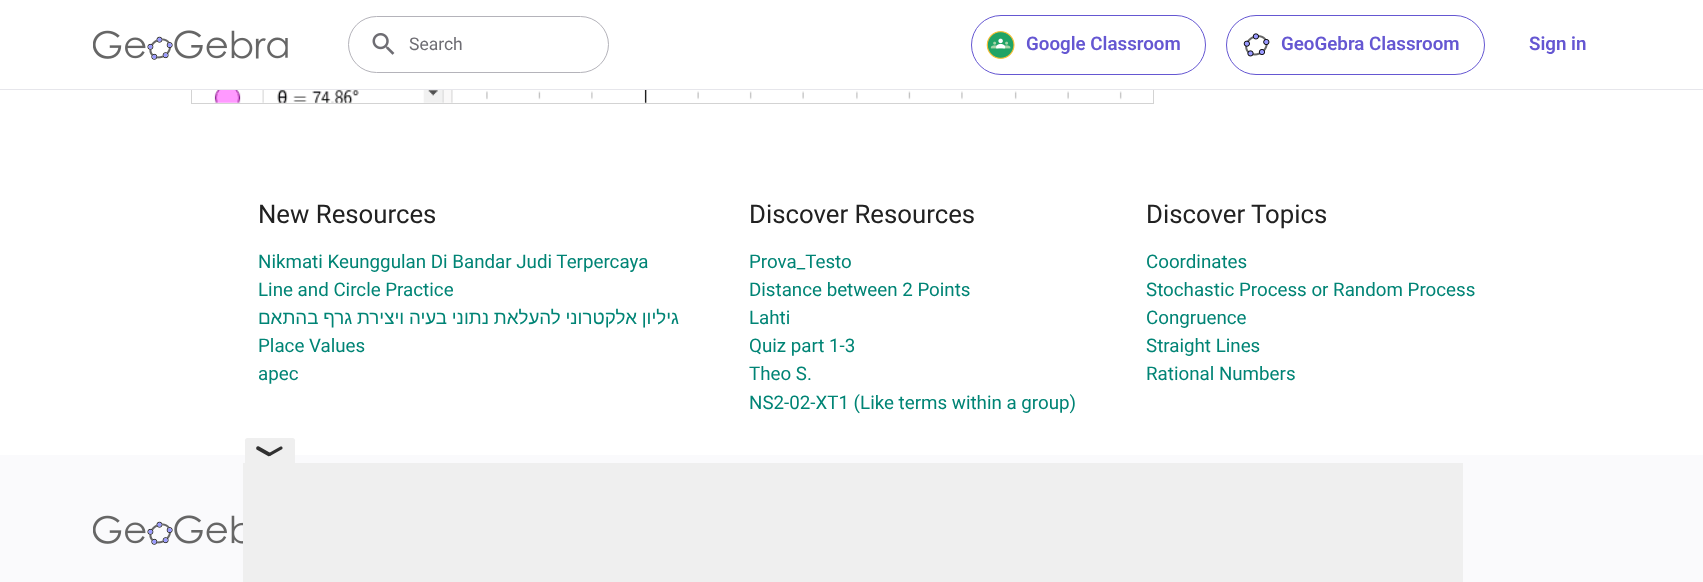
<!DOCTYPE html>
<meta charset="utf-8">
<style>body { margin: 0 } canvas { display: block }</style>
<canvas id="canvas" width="1703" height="582"></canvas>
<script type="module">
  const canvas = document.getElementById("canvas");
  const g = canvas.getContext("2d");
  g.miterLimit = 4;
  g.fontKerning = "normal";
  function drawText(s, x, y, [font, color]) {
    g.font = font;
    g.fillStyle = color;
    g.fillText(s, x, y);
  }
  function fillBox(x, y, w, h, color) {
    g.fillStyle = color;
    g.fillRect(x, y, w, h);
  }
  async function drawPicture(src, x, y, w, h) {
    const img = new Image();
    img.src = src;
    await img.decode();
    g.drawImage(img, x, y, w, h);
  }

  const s1 = ["17.5px Roboto", "#6E6D73"];
  const s2 = ["600 18.75px Roboto", "#6557D2"];
  const s3 = ["25.75px Roboto", "#212121"];
  const s4 = ["18.75px Roboto", "#008475"];
  const s5 = ["18.75px Liberation Sans", "#008475"];

  fillBox(0, 0, 1703, 582, "#FFFFFF");
  await drawPicture("pic5.png", 192, 90, 961, 13);
  g.strokeStyle = "#D3D3D3";
  g.strokeRect(191.5, -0.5, 962, 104);
  fillBox(191, 0, 963, 89, "#FFFFFF");
  fillBox(0, 89, 1703, 1, "#E6E6EB");
  await drawPicture("pic1.png", 93, 30, 195, 30);
  g.beginPath();
  g.roundRect(348.5, 16.5, 260, 56, 28);
  g.strokeStyle = "#B4B3BA";
  g.stroke();
  await drawPicture("pic2.png", 372, 33, 23, 22);
  drawText("Search", 409, 50, s1);
  g.beginPath();
  g.roundRect(971.5, 15.5, 234, 59, 29.5);
  g.strokeStyle = "#6557D2";
  g.stroke();
  await drawPicture("pic3.png", 986, 31, 29, 28);
  drawText("Google Classroom", 1026, 50, s2);
  g.beginPath();
  g.roundRect(1226.5, 15.5, 258, 59, 29.5);
  g.stroke();
  await drawPicture("pic4.png", 1243, 33, 27, 24);
  drawText("GeoGebra Classroom", 1281, 50, s2);
  drawText("Sign in", 1529, 50, s2);
  drawText("New Resources", 258, 223, s3);
  drawText("Nikmati Keunggulan Di Bandar Judi Terpercaya", 258, 268, s4);
  drawText("Line and Circle Practice", 258, 296, s4);
  g.wordSpacing = "-0.5px";
  g.direction = "rtl";
  drawText("גיליון אלקטרוני להעלאת נתוני בעיה ויצירת גרף בהתאם", 679, 324, s5);
  g.wordSpacing = "0px";
  g.direction = "ltr";
  drawText("Place Values", 258, 352, s4);
  drawText("apec", 258, 380, s4);
  drawText("Discover Resources", 749, 223, s3);
  drawText("Prova_Testo", 749, 268, s4);
  drawText("Distance between 2 Points", 749, 296, s4);
  drawText("Lahti", 749, 324, s4);
  drawText("Quiz part 1-3", 749, 352, s4);
  drawText("Theo S.", 749, 380, s4);
  drawText("NS2-02-XT1 (Like terms within a group)", 749, 409, s4);
  drawText("Discover Topics", 1146, 223, s3);
  drawText("Coordinates", 1146, 268, s4);
  drawText("Stochastic Process or Random Process", 1146, 296, s4);
  drawText("Congruence", 1146, 324, s4);
  drawText("Straight Lines", 1146, 352, s4);
  drawText("Rational Numbers", 1146, 380, s4);
  fillBox(0, 455, 1703, 127, "#FAFAFC");
  await drawPicture("pic6.png", 93, 515, 150, 30);
  g.fillStyle = "#EFEFEF";
  g.beginPath();
  g.roundRect(245, 438, 50, 25, [2.5, 2.5, 0, 0]);
  g.fill();
  g.fillStyle = "#313131";
  g.beginPath();
  g.moveTo(259, 446.5);
  g.lineTo(270.5, 453);
  g.bezierCurveTo(271.5, 455, 269.5, 457, 268, 456);
  g.lineTo(256.5, 449.5);
  g.bezierCurveTo(255.5, 447.5, 257, 445.5, 259, 446.5);
  g.closePath();
  g.fill();
  g.beginPath();
  g.moveTo(269, 453);
  g.lineTo(280.5, 446.5);
  g.bezierCurveTo(282.5, 446, 283.5, 448.5, 281.5, 449.5);
  g.lineTo(270, 456);
  g.bezierCurveTo(268, 456.5, 267.5, 453.5, 269, 453);
  g.closePath();
  g.fill();
  fillBox(243, 463, 1220, 119, "#EFEFEF");
</script>
